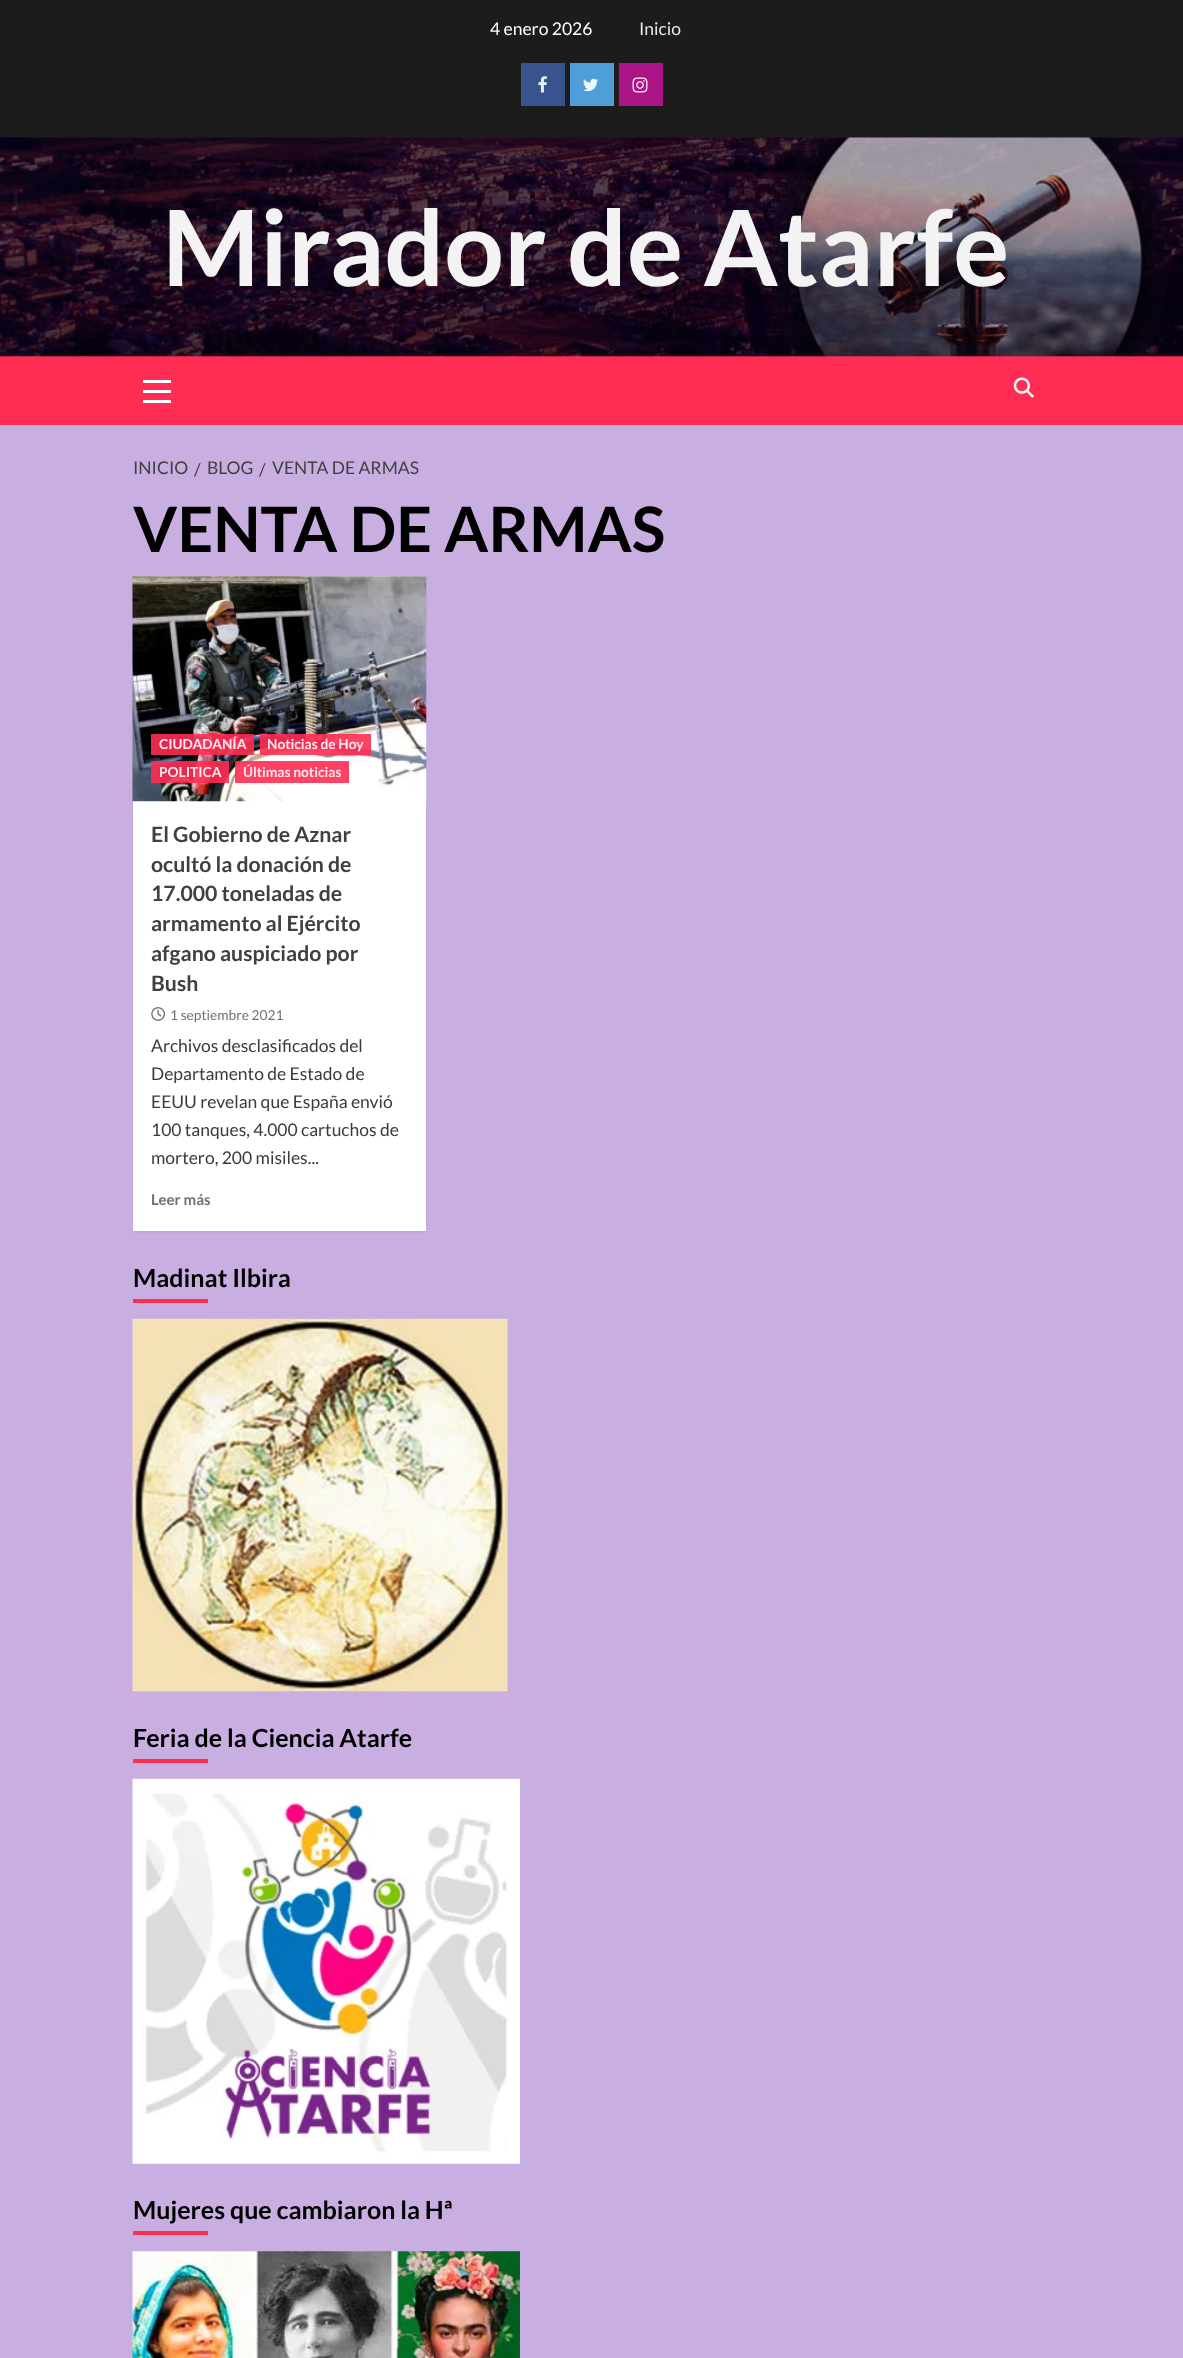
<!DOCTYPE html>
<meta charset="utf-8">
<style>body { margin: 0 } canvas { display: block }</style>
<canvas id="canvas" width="1183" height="2358"></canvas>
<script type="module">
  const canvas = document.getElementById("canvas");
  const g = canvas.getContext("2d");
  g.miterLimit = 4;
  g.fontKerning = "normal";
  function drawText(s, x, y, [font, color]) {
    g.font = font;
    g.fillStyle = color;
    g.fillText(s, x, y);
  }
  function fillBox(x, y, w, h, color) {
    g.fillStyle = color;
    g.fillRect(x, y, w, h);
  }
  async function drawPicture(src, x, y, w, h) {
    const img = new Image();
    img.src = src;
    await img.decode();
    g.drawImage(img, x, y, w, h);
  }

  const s1 = ["17.5px Lato", "#FFFFFF"];
  const s2 = ["17.5px Lato", "#E8E8E8"];
  const s3 = ["bold 105px Lato", "#F3F3F3"];
  const s4 = ["17.5px Lato", "#404040"];
  const s5 = ["bold 62.5px Lato", "#000000"];
  const s6 = ["bold 13.75px Lato", "#FDEAEE"];
  const s7 = ["bold 21.25px Lato", "#404040"];
  const s8 = ["13.75px Lato", "#707070"];
  const s9 = ["17.5px Lato", "#3A3A3A"];
  const s10 = ["bold 15px Lato", "#707070"];
  const s11 = ["bold 25px Lato", "#000000"];

  fillBox(0, 0, 1183, 2358, "#C9AEE2");
  fillBox(0, 0, 1183, 138, "#1C1C1C");
  drawText("4 enero 2026", 490, 35, s1);
  drawText("Inicio", 639, 35, s2);
  fillBox(521, 63, 44, 43, "#38538D");
  await drawPicture("pic1.png", 538, 76, 9, 17);
  fillBox(570, 63, 44, 43, "#4F9ED9");
  await drawPicture("pic2.png", 583, 78, 16, 14);
  fillBox(619, 63, 44, 43, "#AB1588");
  await drawPicture("pic3.png", 632, 77, 16, 16);
  fillBox(0, 356, 1183, 69, "#FF2C54");
  await drawPicture("pic4.png", 0, 137, 1183, 220);
  drawText("Mirador de Atarfe", 162, 286, s3);
  fillBox(143, 390, 28, 3, "#FFFFFF");
  fillBox(143, 380, 28, 3, "#FFFFFF");
  fillBox(143, 400, 28, 3, "#FFFFFF");
  await drawPicture("pic5.png", 1013, 377, 21, 21);
  drawText("INICIO", 133, 474, s4);
  drawText("/", 194, 476, s4);
  drawText("BLOG", 207, 474, s4);
  drawText("/", 259, 476, s4);
  drawText("VENTA DE ARMAS", 272, 474, s4);
  drawText("VENTA DE ARMAS", 133, 552, s5);
  g.fillStyle = "rgba(0, 0, 0, 0.05)";
  g.filter = "blur(1px)";
  g.beginPath();
  g.rect(133, 578, 293, 655);
  g.fill();
  g.filter = "none";
  fillBox(133, 576, 293, 655, "#FFFFFF");
  await drawPicture("pic6.png", 132, 576, 295, 226);
  fillBox(151, 734, 103, 21, "rgba(255, 44, 84, 0.9)");
  drawText("CIUDADANÍA", 159, 749, s6);
  fillBox(260, 734, 111, 21, "rgba(255, 44, 84, 0.9)");
  drawText("Noticias de Hoy", 267, 749, s6);
  fillBox(151, 761, 78, 22, "rgba(255, 44, 84, 0.9)");
  drawText("POLITICA", 159, 777, s6);
  fillBox(235, 761, 114, 22, "rgba(255, 44, 84, 0.9)");
  drawText("Últimas noticias", 243, 777, s6);
  drawText("El Gobierno de Aznar", 151, 842, s7);
  drawText("ocultó la donación de", 151, 872, s7);
  drawText("17.000 toneladas de", 151, 901, s7);
  drawText("armamento al Ejército", 151, 931, s7);
  drawText("afgano auspiciado por", 151, 961, s7);
  drawText("Bush", 151, 991, s7);
  await drawPicture("pic7.png", 151, 1007, 14, 14);
  drawText("1 septiembre 2021", 170, 1020, s8);
  drawText("Archivos desclasificados del", 151, 1052, s9);
  drawText("Departamento de Estado de", 151, 1080, s9);
  drawText("EEUU revelan que España envió", 151, 1108, s9);
  drawText("100 tanques, 4.000 cartuchos de", 151, 1136, s9);
  drawText("mortero, 200 misiles...", 151, 1164, s9);
  drawText("Leer más", 151, 1205, s10);
  drawText("Madinat Ilbira", 133, 1287, s11);
  fillBox(133, 1299, 75, 4, "#FF2C54");
  await drawPicture("pic8.png", 132, 1318, 376, 374);
  drawText("Feria de la Ciencia Atarfe", 133, 1747, s11);
  fillBox(133, 1759, 75, 4, "#FF2C54");
  await drawPicture("pic9.png", 132, 1778, 388, 386);
  drawText("Mujeres que cambiaron la Hª", 133, 2219, s11);
  fillBox(133, 2231, 75, 4, "#FF2C54");
  await drawPicture("pic10.png", 132, 2251, 388, 107);
</script>
